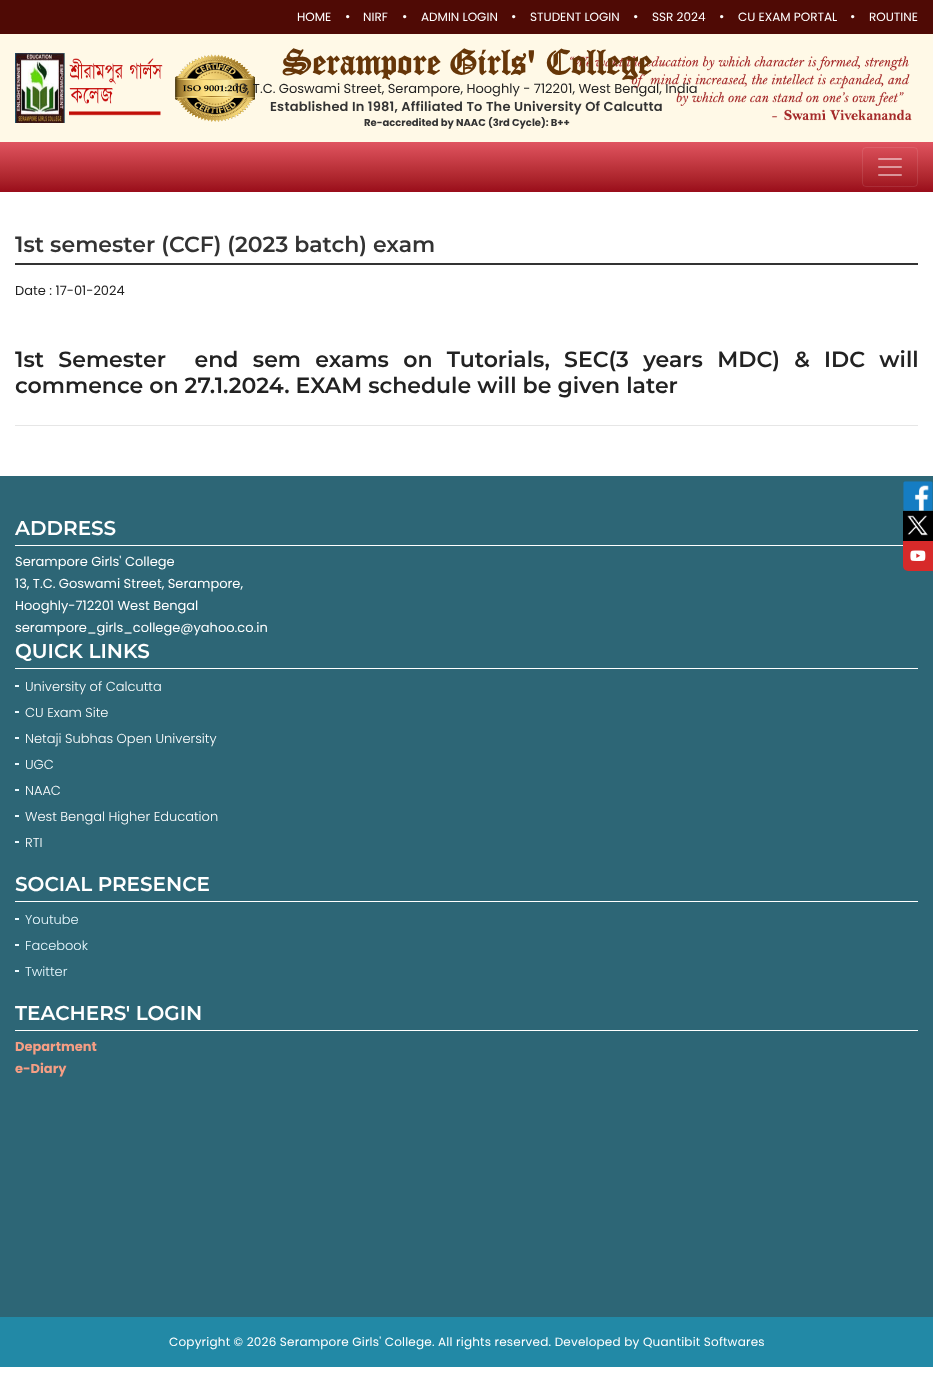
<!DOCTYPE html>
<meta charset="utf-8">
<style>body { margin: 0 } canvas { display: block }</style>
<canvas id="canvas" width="933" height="1375"></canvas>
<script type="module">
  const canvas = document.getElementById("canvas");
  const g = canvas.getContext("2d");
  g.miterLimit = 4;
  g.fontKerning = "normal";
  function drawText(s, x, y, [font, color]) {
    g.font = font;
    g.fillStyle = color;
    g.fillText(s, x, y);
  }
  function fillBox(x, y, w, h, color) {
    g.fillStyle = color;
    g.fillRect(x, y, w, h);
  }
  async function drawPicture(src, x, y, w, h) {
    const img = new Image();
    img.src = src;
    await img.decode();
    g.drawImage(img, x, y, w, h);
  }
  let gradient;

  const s1 = ["12px Poppins", "#FFFFFF"];
  const s2 = ["13px Poppins", "#FFFFFF"];
  const s3 = ["bold 35.1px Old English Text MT", "#663608"];
  const s4 = ["13px Poppins", "#222222"];
  const s5 = ["600 13px Poppins", "#333333"];
  const s6 = ["bold 10px Poppins", "#333333"];
  const s7 = ["600 22px Montserrat", "#333333"];
  const s8 = ["600 22px Montserrat", "#222222"];
  const s9 = ["600 20px Montserrat", "#FFFFFF"];
  const s10 = ["300 13px Poppins", "#FFFFFF"];
  const s11 = ["300 13px Poppins", "#E9F9FF"];
  const s12 = ["bold 13px Poppins", "#F59E84"];

  fillBox(0, 0, 933, 1375, "#FFFFFF");
  fillBox(0, 34, 933, 108, "#FFF9E7");
  fillBox(0, 0, 933, 34, "#4F0A05");
  drawText("HOME", 297, 21, s1);
  drawText("•", 345, 21, s2);
  drawText("NIRF", 363, 21, s1);
  drawText("•", 402, 21, s2);
  drawText("ADMIN LOGIN", 421, 21, s1);
  drawText("•", 511, 21, s2);
  drawText("STUDENT LOGIN", 530, 21, s1);
  drawText("•", 633, 21, s2);
  drawText("SSR 2024", 652, 21, s1);
  drawText("•", 719, 21, s2);
  drawText("CU EXAM PORTAL", 738, 21, s1);
  drawText("•", 850, 21, s2);
  drawText("ROUTINE", 869, 21, s1);
  await drawPicture("pic1.png", 15, 53, 148, 70);
  await drawPicture("pic2.png", 175, 54, 81, 68);
  await drawPicture("pic3.png", 570, 56, 342, 65);
  drawText("Serampore Girls' College", 282, 75, s3);
  drawText("13, T.C. Goswami Street, Serampore, Hooghly - 712201, West Bengal, India", 235, 93, s4);
  g.letterSpacing = "0.2px";
  drawText("Established In 1981, Affiliated To The University Of Calcutta", 270, 111, s5);
  g.letterSpacing = "0px";
  drawText("Re-accredited by NAAC (3rd Cycle): B++", 364, 126, s6);
  gradient = g.createLinearGradient(467, 142, 467, 192);
  gradient.addColorStop(0, "#E05460");
  gradient.addColorStop(0.25, "#CF444E");
  gradient.addColorStop(0.5, "#BD343C");
  gradient.addColorStop(0.75, "#AB232B");
  gradient.addColorStop(1, "#990D1A");
  g.fillStyle = gradient;
  g.fillRect(0, 142, 933, 50);
  g.beginPath();
  g.roundRect(862.5, 147.5, 55, 39, 3.5);
  g.strokeStyle = "rgba(255, 255, 255, 0.1)";
  g.stroke();
  await drawPicture("pic4.png", 878, 158, 24, 18);
  fillBox(15, 263, 903, 2, "#333333");
  drawText("1st semester (CCF) (2023 batch) exam", 15, 252, s7);
  drawText("Date : 17-01-2024", 15, 295, s4);
  g.wordSpacing = "8.25px";
  drawText("1st Semester  end sem exams on Tutorials, SEC(3 years MDC) & IDC will", 15, 367, s8);
  g.wordSpacing = "0px";
  drawText("commence on 27.1.2024. EXAM schedule will be given later", 15, 393, s8);
  fillBox(15, 425, 903, 1, "#E6E6E6");
  fillBox(0, 476, 933, 841, "#2D6676");
  fillBox(15, 545, 888, 1, "#FFFFFF");
  drawText("ADDRESS", 15, 535, s9);
  drawText("Serampore Girls' College", 15, 566, s2);
  drawText("13, T.C. Goswami Street, Serampore,", 15, 588, s2);
  drawText("Hooghly-712201 West Bengal", 15, 610, s2);
  drawText("serampore_girls_college@yahoo.co.in", 15, 632, s2);
  fillBox(15, 668, 903, 1, "#FFFFFF");
  drawText("QUICK LINKS", 15, 658, s9);
  fillBox(15, 685, 4, 2, "#E9F9FF");
  drawText("University of Calcutta", 25, 691, s10);
  fillBox(15, 711, 4, 2, "#E9F9FF");
  drawText("CU Exam Site", 25, 717, s10);
  fillBox(15, 737, 4, 2, "#E9F9FF");
  drawText("Netaji Subhas Open University", 25, 743, s10);
  fillBox(15, 763, 4, 2, "#E9F9FF");
  drawText("UGC", 25, 769, s10);
  fillBox(15, 789, 4, 2, "#E9F9FF");
  drawText("NAAC", 25, 795, s10);
  fillBox(15, 815, 4, 2, "#E9F9FF");
  drawText("West Bengal Higher Education", 25, 821, s10);
  fillBox(15, 841, 4, 2, "#E9F9FF");
  drawText("RTI", 25, 847, s10);
  fillBox(15, 901, 903, 1, "#FFFFFF");
  drawText("SOCIAL PRESENCE", 15, 891, s9);
  fillBox(15, 918, 4, 2, "#E9F9FF");
  drawText("Youtube", 25, 924, s11);
  fillBox(15, 944, 4, 2, "#E9F9FF");
  drawText("Facebook", 25, 950, s11);
  fillBox(15, 970, 4, 2, "#E9F9FF");
  drawText("Twitter", 25, 976, s11);
  fillBox(15, 1030, 903, 1, "#FFFFFF");
  drawText("TEACHERS' LOGIN", 15, 1020, s9);
  drawText("Department", 15, 1051, s12);
  drawText("e-Diary", 15, 1073, s12);
  fillBox(0, 1317, 933, 50, "#2289A6");
  g.letterSpacing = "0.2px";
  drawText("Copyright © 2026 Serampore Girls' College. All rights reserved. Developed by Quantibit Softwares", 169, 1346, s1);
  await drawPicture("pic5.png", 903, 481, 30, 30);
  fillBox(903, 511, 30, 30, "#000000");
  await drawPicture("pic6.png", 907, 515, 21, 21);
  g.fillStyle = "#D72A2A";
  g.beginPath();
  g.roundRect(903, 541, 30, 30, [0, 0, 0, 5]);
  g.fill();
  await drawPicture("pic7.png", 910, 550, 16, 11);
</script>
